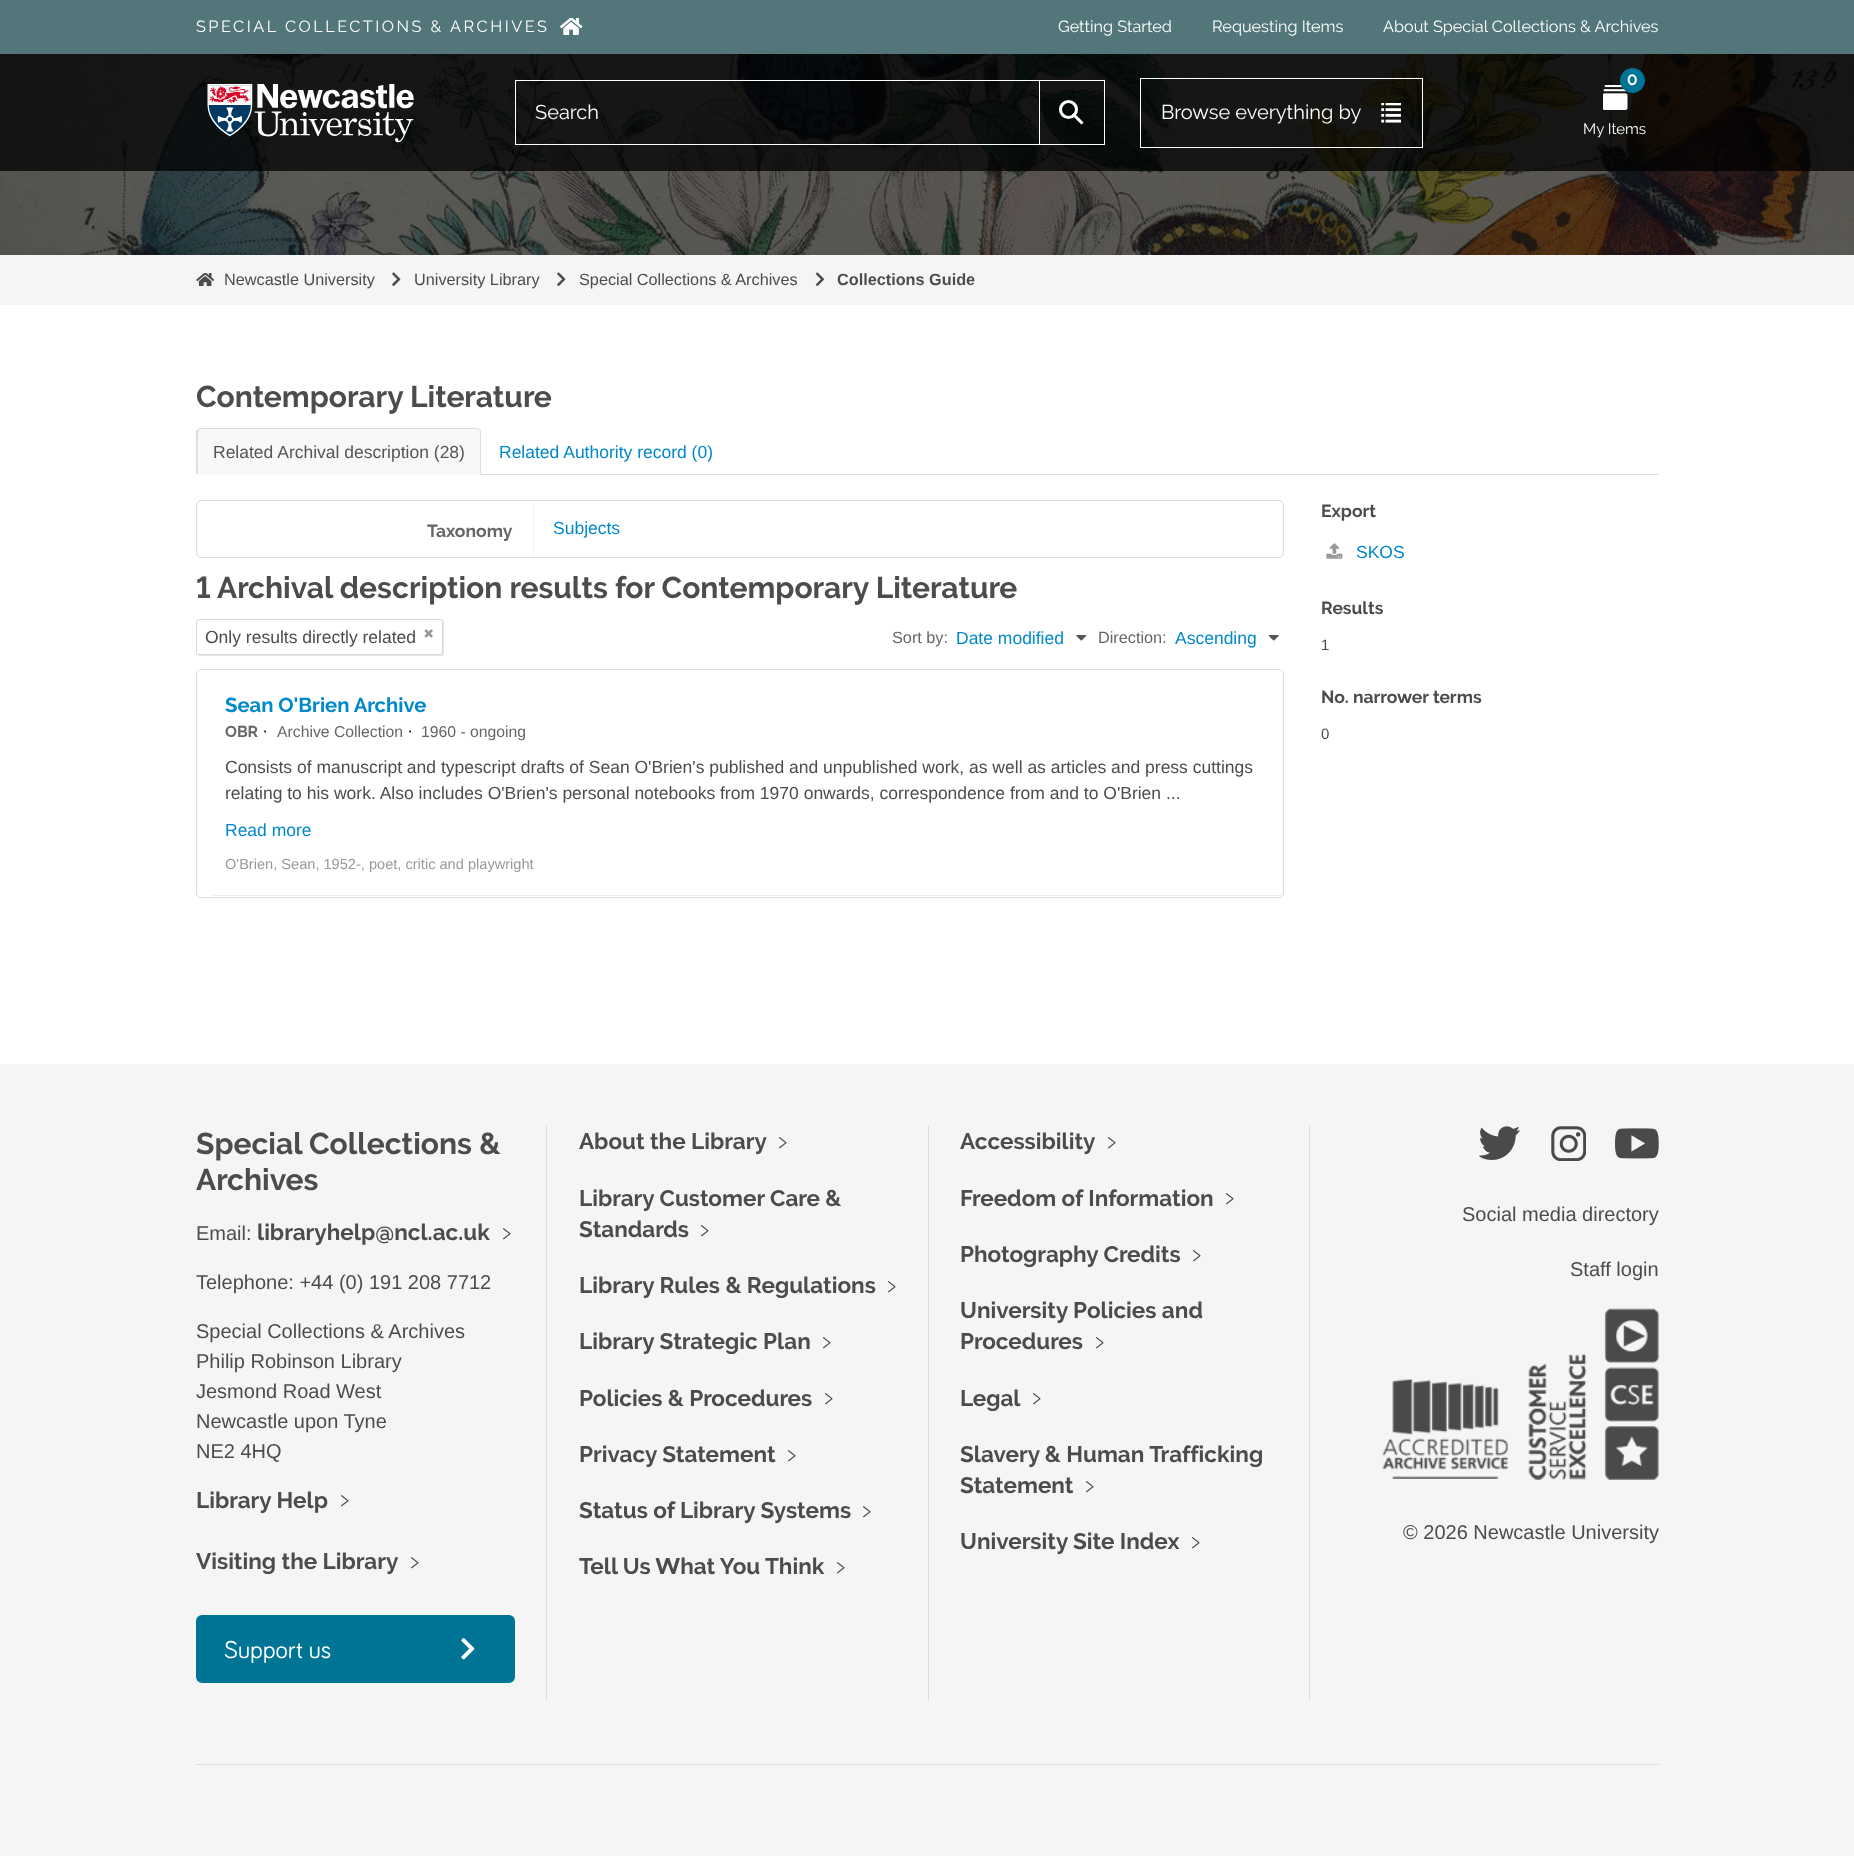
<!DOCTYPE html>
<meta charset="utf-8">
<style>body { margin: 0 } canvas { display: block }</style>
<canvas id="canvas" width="1854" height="1856"></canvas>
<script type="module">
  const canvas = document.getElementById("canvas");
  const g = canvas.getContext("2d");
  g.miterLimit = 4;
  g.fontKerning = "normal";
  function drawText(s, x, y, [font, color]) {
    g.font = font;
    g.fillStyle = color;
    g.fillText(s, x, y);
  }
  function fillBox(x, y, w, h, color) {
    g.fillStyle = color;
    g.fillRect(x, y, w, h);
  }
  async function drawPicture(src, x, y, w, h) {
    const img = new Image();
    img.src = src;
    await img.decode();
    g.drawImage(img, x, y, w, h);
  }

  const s1 = ["16.25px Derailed", "#FFFFFF"];
  const s2 = ["20px Derailed", "#FFFFFF"];
  const s3 = ["bold 15px Derailed", "#FFFFFF"];
  const s4 = ["15px Derailed", "#FFFFFF"];
  const s5 = ["16.25px Liberation Sans", "#4C4C4C"];
  const s6 = ["bold 16.25px Liberation Sans", "#4C4C4C"];
  const s7 = ["bold 30px Derailed", "#4C4C4C"];
  const s8 = ["17.5px Liberation Sans", "#555555"];
  const s9 = ["17.5px Liberation Sans", "#0088CC"];
  const s10 = ["bold 17.5px Derailed", "#666666"];
  const s11 = ["17.5px Liberation Sans", "#4C4C4C"];
  const s12 = ["16.25px Liberation Sans", "#666666"];
  const s13 = ["bold 20.25px Derailed", "#0088CC"];
  const s14 = ["bold 15.75px Derailed", "#666666"];
  const s15 = ["15.75px Open Sans", "#000000"];
  const s16 = ["15.75px Liberation Sans", "#666666"];
  const s17 = ["14.6px Liberation Sans", "#999999"];
  const s18 = ["bold 17.5px Derailed", "#4C4C4C"];
  const s19 = ["15px Liberation Sans", "#4C4C4C"];
  const s20 = ["20px Liberation Sans", "#4C4C4C"];
  const s21 = ["bold 22.5px Derailed", "#4C4C4C"];
  const s22 = ["22.5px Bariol", "#4C4C4C"];
  const s23 = ["25px Bariol", "#FFFFFF"];

  fillBox(0, 0, 1854, 1856, "#FFFFFF");
  fillBox(0, 0, 1854, 54, "#53767A");
  g.letterSpacing = "2.5px";
  drawText("SPECIAL COLLECTIONS & ARCHIVES", 196, 32, s1);
  await drawPicture("pic1.png", 560, 18, 23, 17);
  g.letterSpacing = "0px";
  drawText("Getting Started", 1058, 32, s1);
  drawText("Requesting Items", 1212, 32, s1);
  drawText("About Special Collections & Archives", 1383, 32, s1);
  await drawPicture("pic2.png", 0, 54, 1854, 201);
  fillBox(0, 54, 1854, 117, "rgba(0, 0, 0, 0.75)");
  await drawPicture("pic3.png", 207, 84, 207, 59);
  g.strokeStyle = "#FFFFFF";
  g.strokeRect(515.5, 80.5, 524, 64);
  drawText("Search", 535, 119, s2);
  fillBox(1040, 80, 65, 1, "#FFFFFF");
  fillBox(1104, 80, 1, 65, "#FFFFFF");
  fillBox(1040, 144, 65, 1, "#FFFFFF");
  g.beginPath();
  g.arc(1068.5, 109.5, 8, 0, Math.PI * 2);
  g.lineWidth = 3.1;
  g.stroke();
  g.beginPath();
  g.moveTo(1073, 114);
  g.lineTo(1082.5, 123.5);
  g.stroke();
  g.lineWidth = 1;
  g.strokeRect(1140.5, 78.5, 282, 69);
  drawText("Browse everything by", 1161, 119, s2);
  await drawPicture("pic4.png", 1381, 103, 20, 20);
  await drawPicture("pic5.png", 1603, 85, 25, 25);
  g.fillStyle = "#007494";
  g.beginPath();
  g.arc(1632.5, 80.5, 12.5, 0, Math.PI * 2);
  g.fill();
  drawText("0", 1627, 85, s3);
  drawText("My Items", 1583, 134, s4);
  fillBox(0, 255, 1854, 50, "#F5F5F5");
  await drawPicture("pic6.png", 196, 273, 18, 13);
  drawText("Newcastle University", 224, 285, s5);
  await drawPicture("pic7.png", 392, 272, 9, 14);
  drawText("University Library", 414, 285, s5);
  await drawPicture("pic7.png", 557, 272, 9, 14);
  drawText("Special Collections & Archives", 579, 285, s5);
  await drawPicture("pic8.png", 815, 272, 10, 14);
  drawText("Collections Guide", 837, 285, s6);
  drawText("Contemporary Literature", 196, 407, s7);
  fillBox(481, 474, 1178, 1, "#DDDDDD");
  g.fillStyle = "#F8F8F8";
  g.beginPath();
  g.roundRect(196, 428, 285, 47, [5, 5, 0, 0]);
  g.fill();
  g.fillStyle = "#DDDDDD";
  g.beginPath();
  g.moveTo(201, 428);
  g.lineTo(198, 429);
  g.lineTo(199, 430);
  g.bezierCurveTo(199, 429, 200, 429, 201, 429);
  g.lineTo(476, 429);
  g.lineTo(479, 430);
  g.lineTo(480, 429);
  g.lineTo(476, 428);
  g.closePath();
  g.fill();
  g.beginPath();
  g.moveTo(481, 475);
  g.lineTo(481, 431);
  g.lineTo(480, 429);
  g.lineTo(479, 430);
  g.lineTo(480, 431);
  g.lineTo(480, 474);
  g.closePath();
  g.fill();
  g.beginPath();
  g.moveTo(196, 475);
  g.lineTo(198, 473);
  g.bezierCurveTo(198, 468, 197, 432, 199, 430);
  g.lineTo(198, 429);
  g.lineTo(196, 431);
  g.closePath();
  g.fill();
  drawText("Related Archival description (28)", 213, 458, s8);
  drawText("Related Authority record (0)", 499, 458, s9);
  g.beginPath();
  g.roundRect(196.5, 500.5, 1087, 57, 4.5);
  g.strokeStyle = "#DCDCDC";
  g.stroke();
  fillBox(533, 503, 1, 53, "#F2F2F2");
  drawText("Taxonomy", 427, 537, s10);
  drawText("Subjects", 553, 534, s9);
  drawText("1 Archival description results for Contemporary Literature", 196, 598, s7);
  g.fillStyle = "rgba(0, 0, 0, 0.1)";
  g.filter = "blur(0.5px)";
  g.beginPath();
  g.roundRect(198, 620, 246, 36, 2.5);
  g.fill();
  g.filter = "none";
  g.fillStyle = "#FFFFFF";
  g.beginPath();
  g.roundRect(196.5, 619.5, 246, 35, 2);
  g.fill();
  g.strokeStyle = "#D9D9D9";
  g.stroke();
  drawText("Only results directly related", 205, 643, s11);
  await drawPicture("pic9.png", 424, 629, 9, 9);
  drawText("Sort by:", 892, 643, s12);
  drawText("Date modified", 956, 644, s9);
  await drawPicture("pic10.png", 1076, 635, 11, 6);
  drawText("Direction:", 1098, 643, s12);
  drawText("Ascending", 1175, 644, s9);
  await drawPicture("pic11.png", 1268, 635, 11, 6);
  g.beginPath();
  g.roundRect(196.5, 669.5, 1087, 228, 4.5);
  g.strokeStyle = "#DCDCDC";
  g.stroke();
  fillBox(213, 895, 1070, 1, "#EEEEEE");
  drawText("Sean O'Brien Archive", 225, 712, s13);
  drawText("OBR", 225, 737, s14);
  drawText("·", 263, 737, s15);
  drawText("Archive Collection", 277, 737, s16);
  drawText("·", 408, 737, s15);
  drawText("1960 - ongoing", 421, 737, s16);
  drawText("Consists of manuscript and typescript drafts of Sean O'Brien's published and unpublished work, as well as articles and press cuttings", 225, 773, s11);
  drawText("relating to his work. Also includes O'Brien's personal notebooks from 1970 onwards, correspondence from and to O'Brien ...", 225, 799, s11);
  drawText("Read more", 225, 836, s9);
  drawText("O'Brien, Sean, 1952-, poet, critic and playwright", 225, 869, s17);
  drawText("Export", 1321, 517, s18);
  await drawPicture("pic12.png", 1326, 543, 17, 16);
  drawText("SKOS", 1356, 558, s9);
  drawText("Results", 1321, 614, s18);
  drawText("1", 1321, 650, s19);
  drawText("No. narrower terms", 1321, 703, s18);
  drawText("0", 1321, 739, s19);
  fillBox(0, 1064, 1854, 792, "#F5F5F5");
  drawText("Special Collections &", 196, 1154, s7);
  drawText("Archives", 196, 1190, s7);
  drawText("Email:", 196, 1240, s20);
  drawText("libraryhelp@ncl.ac.uk", 257, 1240, s21);
  drawText(">", 503, 1239, s22);
  drawText("Telephone: +44 (0) 191 208 7712", 196, 1289, s20);
  drawText("Special Collections & Archives", 196, 1338, s20);
  drawText("Philip Robinson Library", 196, 1368, s20);
  drawText("Jesmond Road West", 196, 1398, s20);
  drawText("Newcastle upon Tyne", 196, 1428, s20);
  drawText("NE2 4HQ", 196, 1458, s20);
  drawText("Library Help", 196, 1508, s21);
  drawText(">", 341, 1506, s22);
  drawText("Visiting the Library", 196, 1569, s21);
  drawText(">", 411, 1568, s22);
  g.fillStyle = "#007494";
  g.beginPath();
  g.roundRect(197.5, 1616.5, 316, 65, 4.5);
  g.fill();
  g.strokeStyle = "#007494";
  g.lineWidth = 3;
  g.stroke();
  drawText("Support us", 224, 1658, s23);
  await drawPicture("pic13.png", 461, 1638, 14, 22);
  fillBox(546, 1126, 1, 575, "#DCDCDC");
  drawText("About the Library", 579, 1149, s21);
  drawText(">", 779, 1148, s22);
  drawText("Library Customer Care &", 579, 1206, s21);
  drawText("Standards", 579, 1237, s21);
  drawText(">", 701, 1236, s22);
  drawText("Library Rules & Regulations", 579, 1293, s21);
  drawText(">", 888, 1292, s22);
  drawText("Library Strategic Plan", 579, 1349, s21);
  drawText(">", 823, 1348, s22);
  drawText("Policies & Procedures", 579, 1406, s21);
  drawText(">", 825, 1404, s22);
  drawText("Privacy Statement", 579, 1462, s21);
  drawText(">", 788, 1461, s22);
  drawText("Status of Library Systems", 579, 1518, s21);
  drawText(">", 863, 1517, s22);
  drawText("Tell Us What You Think", 579, 1574, s21);
  drawText(">", 837, 1573, s22);
  fillBox(928, 1126, 1, 575, "#DCDCDC");
  drawText("Accessibility", 960, 1149, s21);
  drawText(">", 1108, 1148, s22);
  drawText("Freedom of Information", 960, 1206, s21);
  drawText(">", 1226, 1204, s22);
  drawText("Photography Credits", 960, 1262, s21);
  drawText(">", 1193, 1261, s22);
  drawText("University Policies and", 960, 1318, s21);
  drawText("Procedures", 960, 1349, s21);
  drawText(">", 1096, 1348, s22);
  drawText("Legal", 960, 1406, s21);
  drawText(">", 1033, 1404, s22);
  drawText("Slavery & Human Trafficking", 960, 1462, s21);
  drawText("Statement", 960, 1493, s21);
  drawText(">", 1086, 1492, s22);
  drawText("University Site Index", 960, 1549, s21);
  drawText(">", 1192, 1548, s22);
  fillBox(1309, 1126, 1, 575, "#DCDCDC");
  await drawPicture("pic14.png", 1479, 1126, 41, 34);
  await drawPicture("pic15.png", 1551, 1126, 35, 35);
  await drawPicture("pic16.png", 1615, 1128, 44, 31);
  drawText("Social media directory", 1462, 1221, s20);
  drawText("Staff login", 1570, 1276, s20);
  await drawPicture("pic17.png", 1382, 1379, 126, 100);
  await drawPicture("pic18.png", 1528, 1308, 131, 172);
  drawText("© 2026 Newcastle University", 1403, 1539, s20);
  fillBox(196, 1764, 1463, 1, "#DCDCDC");
</script>
